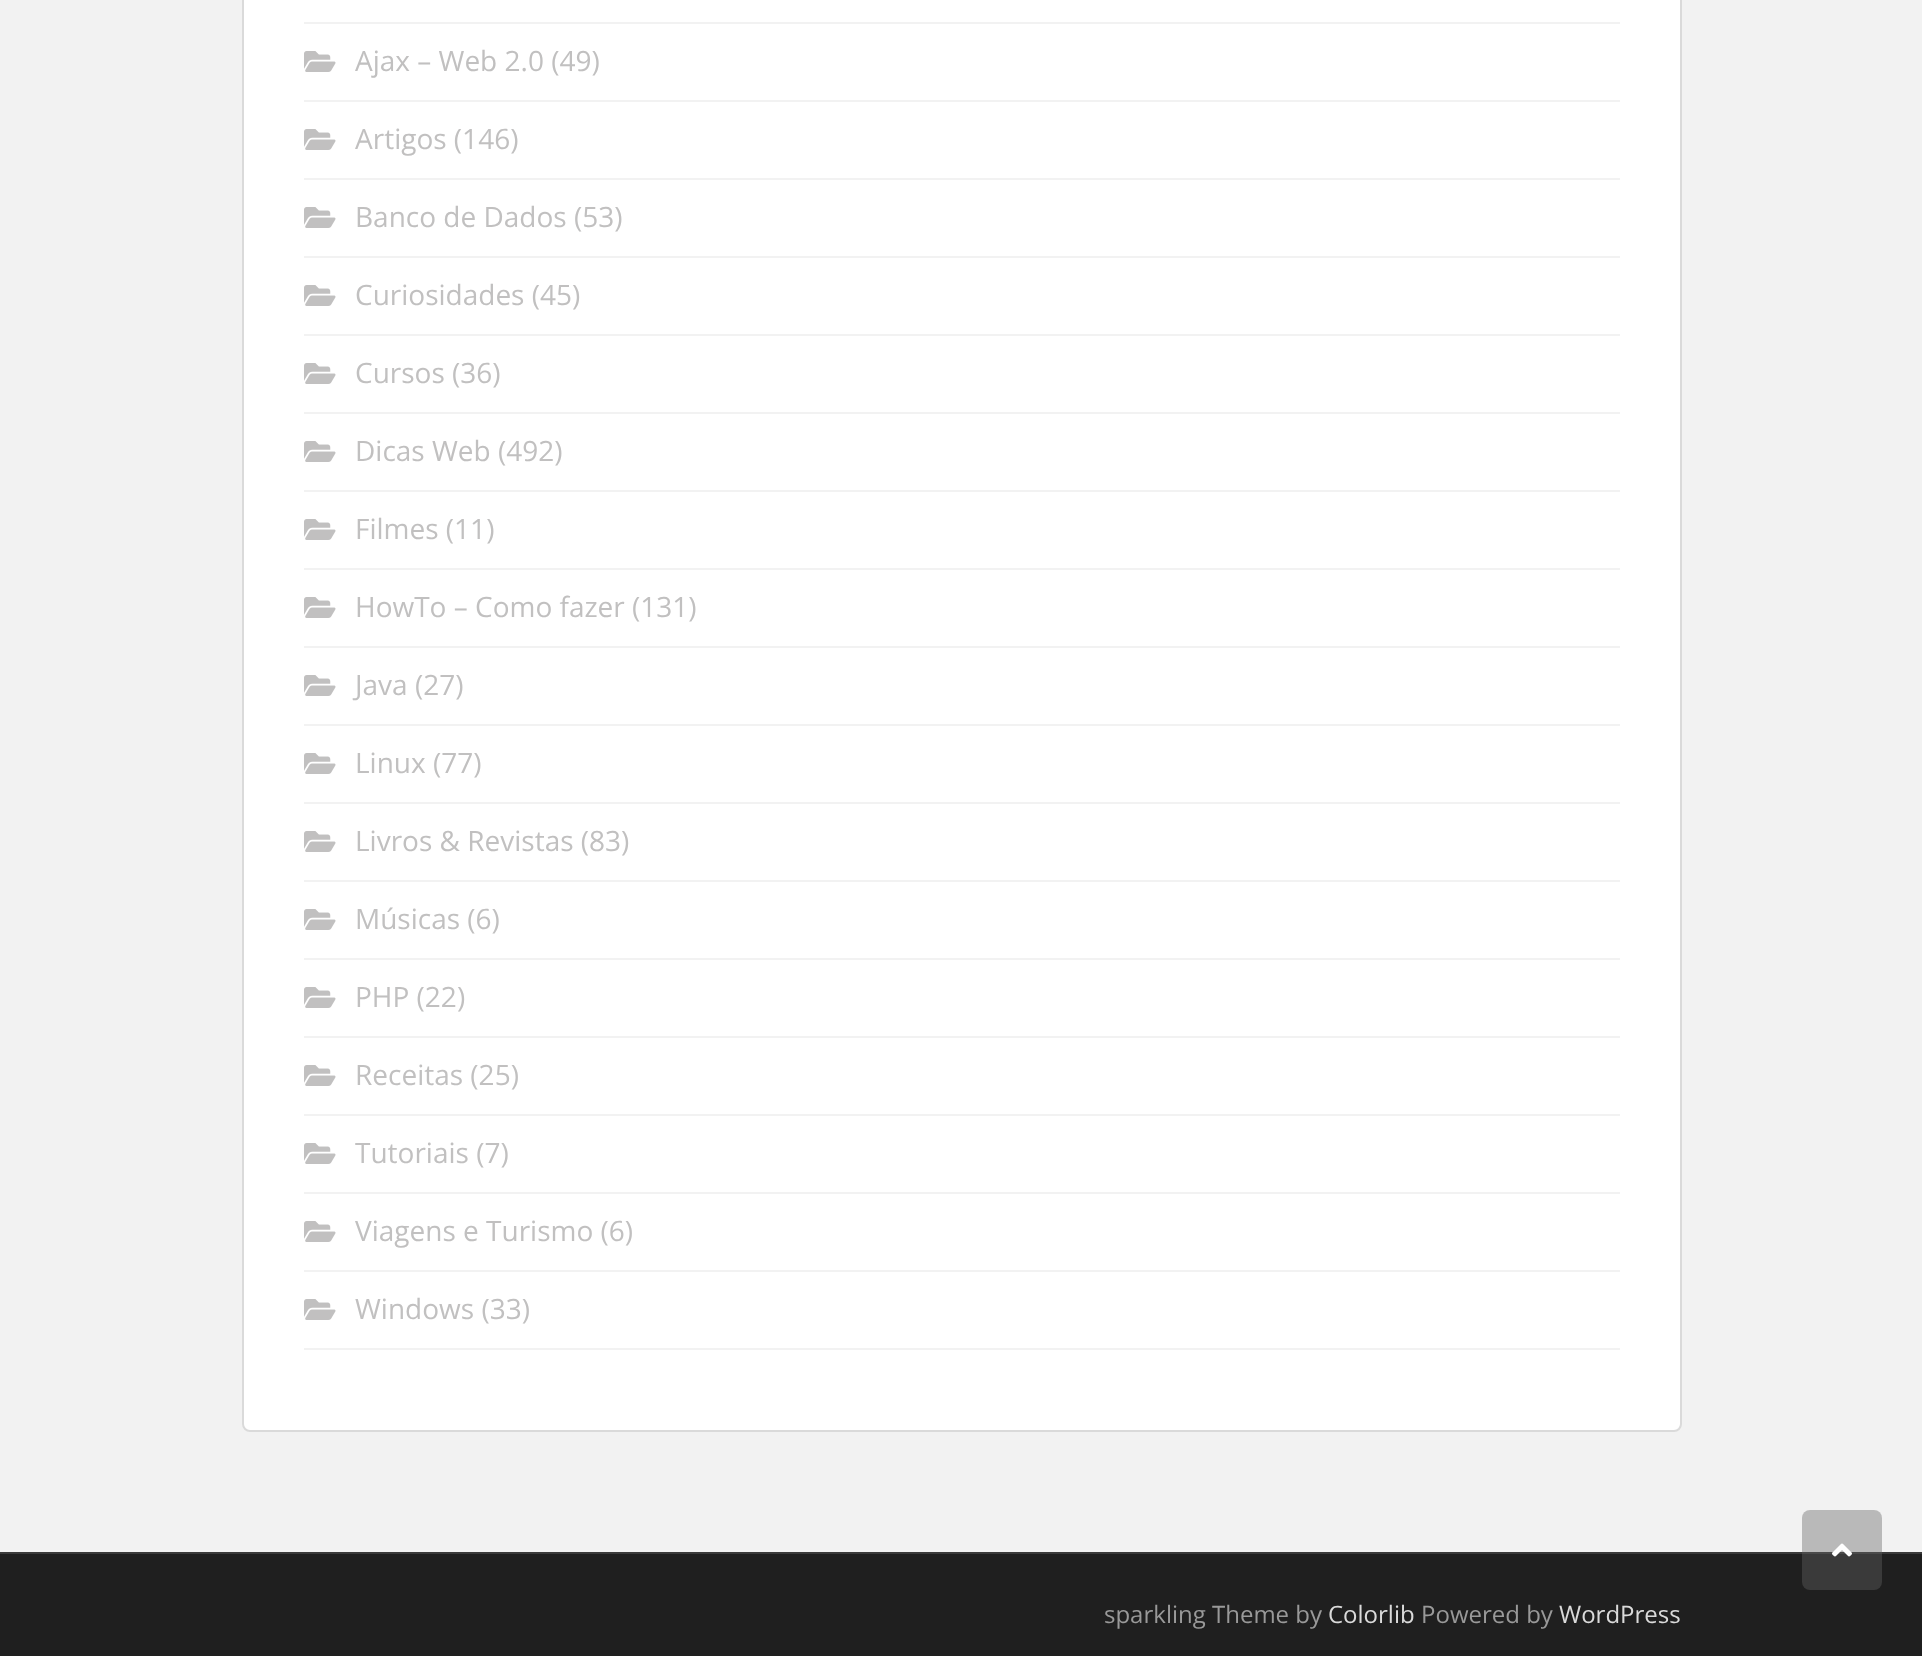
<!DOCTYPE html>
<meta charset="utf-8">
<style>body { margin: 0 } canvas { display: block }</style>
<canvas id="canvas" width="1922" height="1656"></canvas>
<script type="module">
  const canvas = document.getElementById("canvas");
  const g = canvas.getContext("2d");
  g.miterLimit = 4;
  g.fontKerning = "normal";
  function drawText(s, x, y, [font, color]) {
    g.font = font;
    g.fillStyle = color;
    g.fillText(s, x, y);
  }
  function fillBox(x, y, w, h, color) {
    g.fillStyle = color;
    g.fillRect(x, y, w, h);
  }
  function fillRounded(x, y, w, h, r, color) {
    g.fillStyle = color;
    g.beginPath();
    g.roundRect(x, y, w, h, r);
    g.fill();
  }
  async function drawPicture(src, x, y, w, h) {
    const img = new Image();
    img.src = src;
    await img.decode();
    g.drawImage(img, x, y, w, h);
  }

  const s1 = ["28px Open Sans", "#C1C0C0"];
  const s2 = ["24px Open Sans", "#999999"];
  const s3 = ["24px Open Sans", "#DADADA"];

  fillBox(0, 0, 1922, 1656, "#F2F2F2");
  g.fillStyle = "#FFFFFF";
  g.beginPath();
  g.roundRect(243, -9, 1438, 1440, 7);
  g.fill();
  g.strokeStyle = "#DADADA";
  g.lineWidth = 2;
  g.stroke();
  fillBox(304, 22, 1316, 2, "#F2F2F2");
  fillBox(304, 100, 1316, 2, "#F2F2F2");
  await drawPicture("pic1.png", 304, 51, 32, 21);
  drawText("Ajax – Web 2.0 (49)", 355, 71, s1);
  fillBox(304, 178, 1316, 2, "#F2F2F2");
  await drawPicture("pic1.png", 304, 129, 32, 21);
  drawText("Artigos (146)", 355, 149, s1);
  fillBox(304, 256, 1316, 2, "#F2F2F2");
  await drawPicture("pic1.png", 304, 207, 32, 21);
  drawText("Banco de Dados (53)", 355, 227, s1);
  fillBox(304, 334, 1316, 2, "#F2F2F2");
  await drawPicture("pic1.png", 304, 285, 32, 21);
  drawText("Curiosidades (45)", 355, 305, s1);
  fillBox(304, 412, 1316, 2, "#F2F2F2");
  await drawPicture("pic1.png", 304, 363, 32, 21);
  drawText("Cursos (36)", 355, 383, s1);
  fillBox(304, 490, 1316, 2, "#F2F2F2");
  await drawPicture("pic1.png", 304, 441, 32, 21);
  drawText("Dicas Web (492)", 355, 461, s1);
  fillBox(304, 568, 1316, 2, "#F2F2F2");
  await drawPicture("pic1.png", 304, 519, 32, 21);
  drawText("Filmes (11)", 355, 539, s1);
  fillBox(304, 646, 1316, 2, "#F2F2F2");
  await drawPicture("pic1.png", 304, 597, 32, 21);
  drawText("HowTo – Como fazer (131)", 355, 617, s1);
  fillBox(304, 724, 1316, 2, "#F2F2F2");
  await drawPicture("pic1.png", 304, 675, 32, 21);
  drawText("Java (27)", 355, 695, s1);
  fillBox(304, 802, 1316, 2, "#F2F2F2");
  await drawPicture("pic1.png", 304, 753, 32, 21);
  drawText("Linux (77)", 355, 773, s1);
  fillBox(304, 880, 1316, 2, "#F2F2F2");
  await drawPicture("pic1.png", 304, 831, 32, 21);
  drawText("Livros & Revistas (83)", 355, 851, s1);
  fillBox(304, 958, 1316, 2, "#F2F2F2");
  await drawPicture("pic1.png", 304, 909, 32, 21);
  drawText("Músicas (6)", 355, 929, s1);
  fillBox(304, 1036, 1316, 2, "#F2F2F2");
  await drawPicture("pic1.png", 304, 987, 32, 21);
  drawText("PHP (22)", 355, 1007, s1);
  fillBox(304, 1114, 1316, 2, "#F2F2F2");
  await drawPicture("pic1.png", 304, 1065, 32, 21);
  drawText("Receitas (25)", 355, 1085, s1);
  fillBox(304, 1192, 1316, 2, "#F2F2F2");
  await drawPicture("pic1.png", 304, 1143, 32, 21);
  drawText("Tutoriais (7)", 355, 1163, s1);
  fillBox(304, 1270, 1316, 2, "#F2F2F2");
  await drawPicture("pic1.png", 304, 1221, 32, 21);
  drawText("Viagens e Turismo (6)", 355, 1241, s1);
  fillBox(304, 1348, 1316, 2, "#F2F2F2");
  await drawPicture("pic1.png", 304, 1299, 32, 21);
  drawText("Windows (33)", 355, 1319, s1);
  fillBox(0, 1554, 1922, 102, "#1F1F1F");
  fillBox(0, 1552, 1922, 2, "#3A3A3A");
  fillRounded(1802, 1510, 80, 80, 8, "rgba(100, 100, 100, 0.4)");
  await drawPicture("pic2.png", 1832, 1543, 20, 14);
  drawText("sparkling Theme by", 1104, 1623, s2);
  drawText("Colorlib", 1328, 1623, s3);
  drawText("Powered by", 1421, 1623, s2);
  drawText("WordPress", 1559, 1623, s3);
</script>
